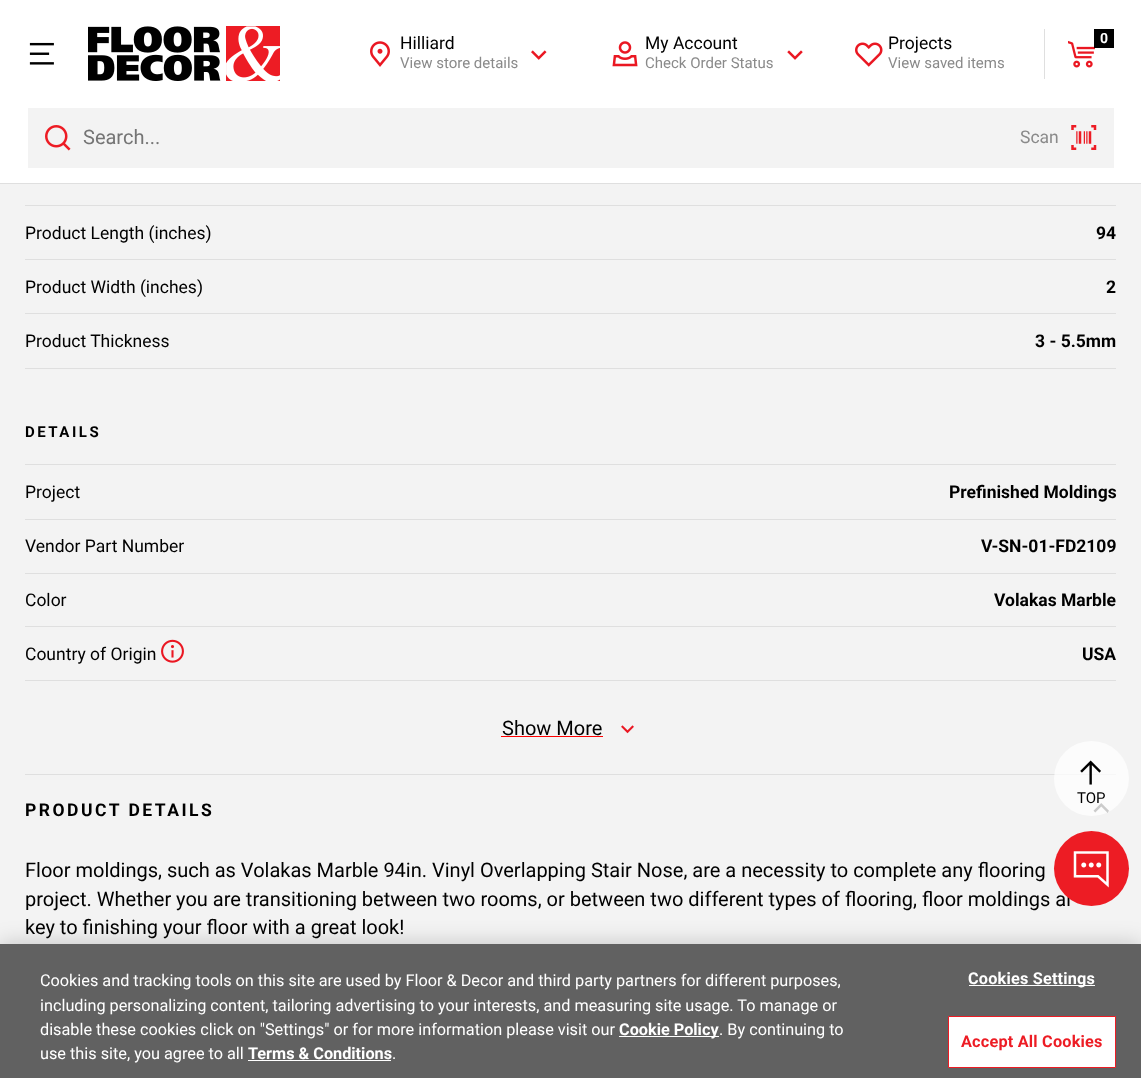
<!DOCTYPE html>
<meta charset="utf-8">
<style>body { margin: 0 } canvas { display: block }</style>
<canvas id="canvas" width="1141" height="1078"></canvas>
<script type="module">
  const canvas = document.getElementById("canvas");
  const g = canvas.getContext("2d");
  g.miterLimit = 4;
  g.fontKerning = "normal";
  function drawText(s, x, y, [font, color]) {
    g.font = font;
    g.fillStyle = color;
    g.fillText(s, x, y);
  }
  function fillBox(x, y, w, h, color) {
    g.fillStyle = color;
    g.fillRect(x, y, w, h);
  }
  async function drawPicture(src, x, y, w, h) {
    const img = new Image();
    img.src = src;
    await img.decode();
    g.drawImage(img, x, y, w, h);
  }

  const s1 = ["17.5px Roboto", "#000000"];
  const s2 = ["15px Roboto", "#8A8A8A"];
  const s3 = ["bold 14px Roboto", "#FFFFFF"];
  const s4 = ["20px Roboto", "#757575"];
  const s5 = ["17.5px Roboto", "#8A8A8A"];
  const s6 = ["bold 17.5px Roboto", "#000000"];
  const s7 = ["bold 15px Roboto", "#000000"];
  const s8 = ["20px Roboto", "#000000"];
  const s9 = ["15px Roboto", "#000000"];
  const s10 = ["16.25px Roboto", "#FFFFFF"];
  const s11 = ["bold 16.25px Roboto", "#FFFFFF"];
  const s12 = ["bold 16.25px Roboto", "#ED1C24"];

  fillBox(0, 0, 1141, 1078, "#F3F3F3");
  fillBox(0, 0, 1141, 183, "#FFFFFF");
  fillBox(0, 183, 1141, 1, "#DFDFDF");
  await drawPicture("pic1.png", 29, 42, 25, 23);
  await drawPicture("pic2.png", 88, 26, 192, 55);
  await drawPicture("pic3.png", 370, 41, 20, 26);
  drawText("Hilliard", 400, 49, s1);
  await drawPicture("pic4.png", 531, 50, 16, 10);
  drawText("View store details", 400, 68, s2);
  await drawPicture("pic5.png", 612, 41, 26, 26);
  drawText("My Account", 645, 49, s1);
  await drawPicture("pic6.png", 787, 50, 16, 10);
  drawText("Check Order Status", 645, 68, s2);
  await drawPicture("pic7.png", 855, 42, 28, 25);
  drawText("Projects", 888, 49, s1);
  drawText("View saved items", 888, 68, s2);
  fillBox(1044, 29, 1, 50, "#DFDFDF");
  await drawPicture("pic8.png", 1068, 40, 27, 28);
  fillBox(1094, 29, 20, 19, "#000000");
  drawText("0", 1100, 43, s3);
  fillBox(28, 108, 1086, 60, "#F3F3F3");
  await drawPicture("pic9.png", 45, 125, 26, 26);
  drawText("Search...", 83, 144, s4);
  drawText("Scan", 1020, 143, s5);
  await drawPicture("pic10.png", 1071, 125, 26, 25);
  fillBox(25, 774, 1091, 1, "#DFDFDF");
  fillBox(25, 205, 1091, 1, "#DFDFDF");
  fillBox(25, 259, 1091, 1, "#DFDFDF");
  drawText("Product Length (inches)", 25, 239, s1);
  drawText("94", 1096, 239, s6);
  fillBox(25, 313, 1091, 1, "#DFDFDF");
  drawText("Product Width (inches)", 25, 293, s1);
  drawText("2", 1106, 293, s6);
  fillBox(25, 368, 1091, 1, "#DFDFDF");
  drawText("Product Thickness", 25, 347, s1);
  drawText("3 - 5.5mm", 1035, 347, s6);
  g.letterSpacing = "2.5px";
  drawText("DETAILS", 25, 437, s7);
  fillBox(25, 464, 1091, 1, "#DFDFDF");
  fillBox(25, 519, 1091, 1, "#DFDFDF");
  g.letterSpacing = "0px";
  drawText("Project", 25, 498, s1);
  drawText("Prefinished Moldings", 949, 498, s6);
  fillBox(25, 573, 1091, 1, "#DFDFDF");
  drawText("Vendor Part Number", 25, 552, s1);
  drawText("V-SN-01-FD2109", 981, 552, s6);
  fillBox(25, 626, 1091, 1, "#DFDFDF");
  drawText("Color", 25, 606, s1);
  drawText("Volakas Marble", 994, 606, s6);
  fillBox(25, 680, 1091, 1, "#DFDFDF");
  drawText("Country of Origin", 25, 660, s1);
  await drawPicture("pic11.png", 161, 639, 23, 24);
  drawText("USA", 1082, 660, s6);
  drawText("Show More", 502, 735, s8);
  fillBox(501, 736, 102, 1, "#FF0000");
  await drawPicture("pic12.png", 621, 725, 13, 9);
  g.letterSpacing = "2.5px";
  drawText("PRODUCT DETAILS", 25, 816, s6);
  await drawPicture("pic13.png", 1093, 803, 16, 10);
  g.letterSpacing = "0px";
  drawText("Floor moldings, such as Volakas Marble 94in. Vinyl Overlapping Stair Nose, are a necessity to complete any flooring", 25, 877, s8);
  drawText("project. Whether you are transitioning between two rooms, or between two different types of flooring, floor moldings ar", 25, 906, s8);
  drawText("key to finishing your floor with a great look!", 25, 934, s8);
  g.fillStyle = "rgba(255, 255, 255, 0.75)";
  g.beginPath();
  g.arc(1091.5, 778.5, 37.5, 0, Math.PI * 2);
  g.fill();
  await drawPicture("pic14.png", 1080, 760, 21, 25);
  drawText("TOP", 1077, 803, s9);
  g.fillStyle = "#ED1C24";
  g.beginPath();
  g.arc(1091.5, 868.5, 37.5, 0, Math.PI * 2);
  g.fill();
  await drawPicture("pic15.png", 1073, 851, 36, 37);
  g.fillStyle = "rgba(0, 0, 0, 0.2)";
  g.filter = "blur(11px)";
  g.beginPath();
  g.rect(0, 944, 1141, 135);
  g.fill();
  g.filter = "none";
  fillBox(0, 944, 1141, 134, "#616161");
  drawText("Cookies and tracking tools on this site are used by Floor & Decor and third party partners for different purposes,", 40, 986, s10);
  drawText("including personalizing content, tailoring advertising to your interests, and measuring site usage. To manage or", 40, 1011, s10);
  drawText("disable these cookies click on \"Settings\" or for more information please visit our", 40, 1035, s10);
  fillBox(619, 1036, 100, 1, "#FFFFFF");
  drawText("Cookie Policy", 619, 1035, s11);
  drawText(". By continuing to", 719, 1035, s10);
  drawText("use this site, you agree to all", 40, 1059, s10);
  drawText("Terms & Conditions", 248, 1059, s11);
  fillBox(248, 1060, 143, 1, "#FFFFFF");
  drawText(".", 392, 1059, s10);
  fillBox(969, 985, 126, 1, "#FFFFFF");
  g.letterSpacing = "0.2px";
  drawText("Cookies Settings", 968, 984, s11);
  g.beginPath();
  g.rect(948.5, 1016.5, 167, 51);
  g.fill();
  g.strokeStyle = "#ED1C24";
  g.stroke();
  drawText("Accept All Cookies", 961, 1047, s12);
</script>
